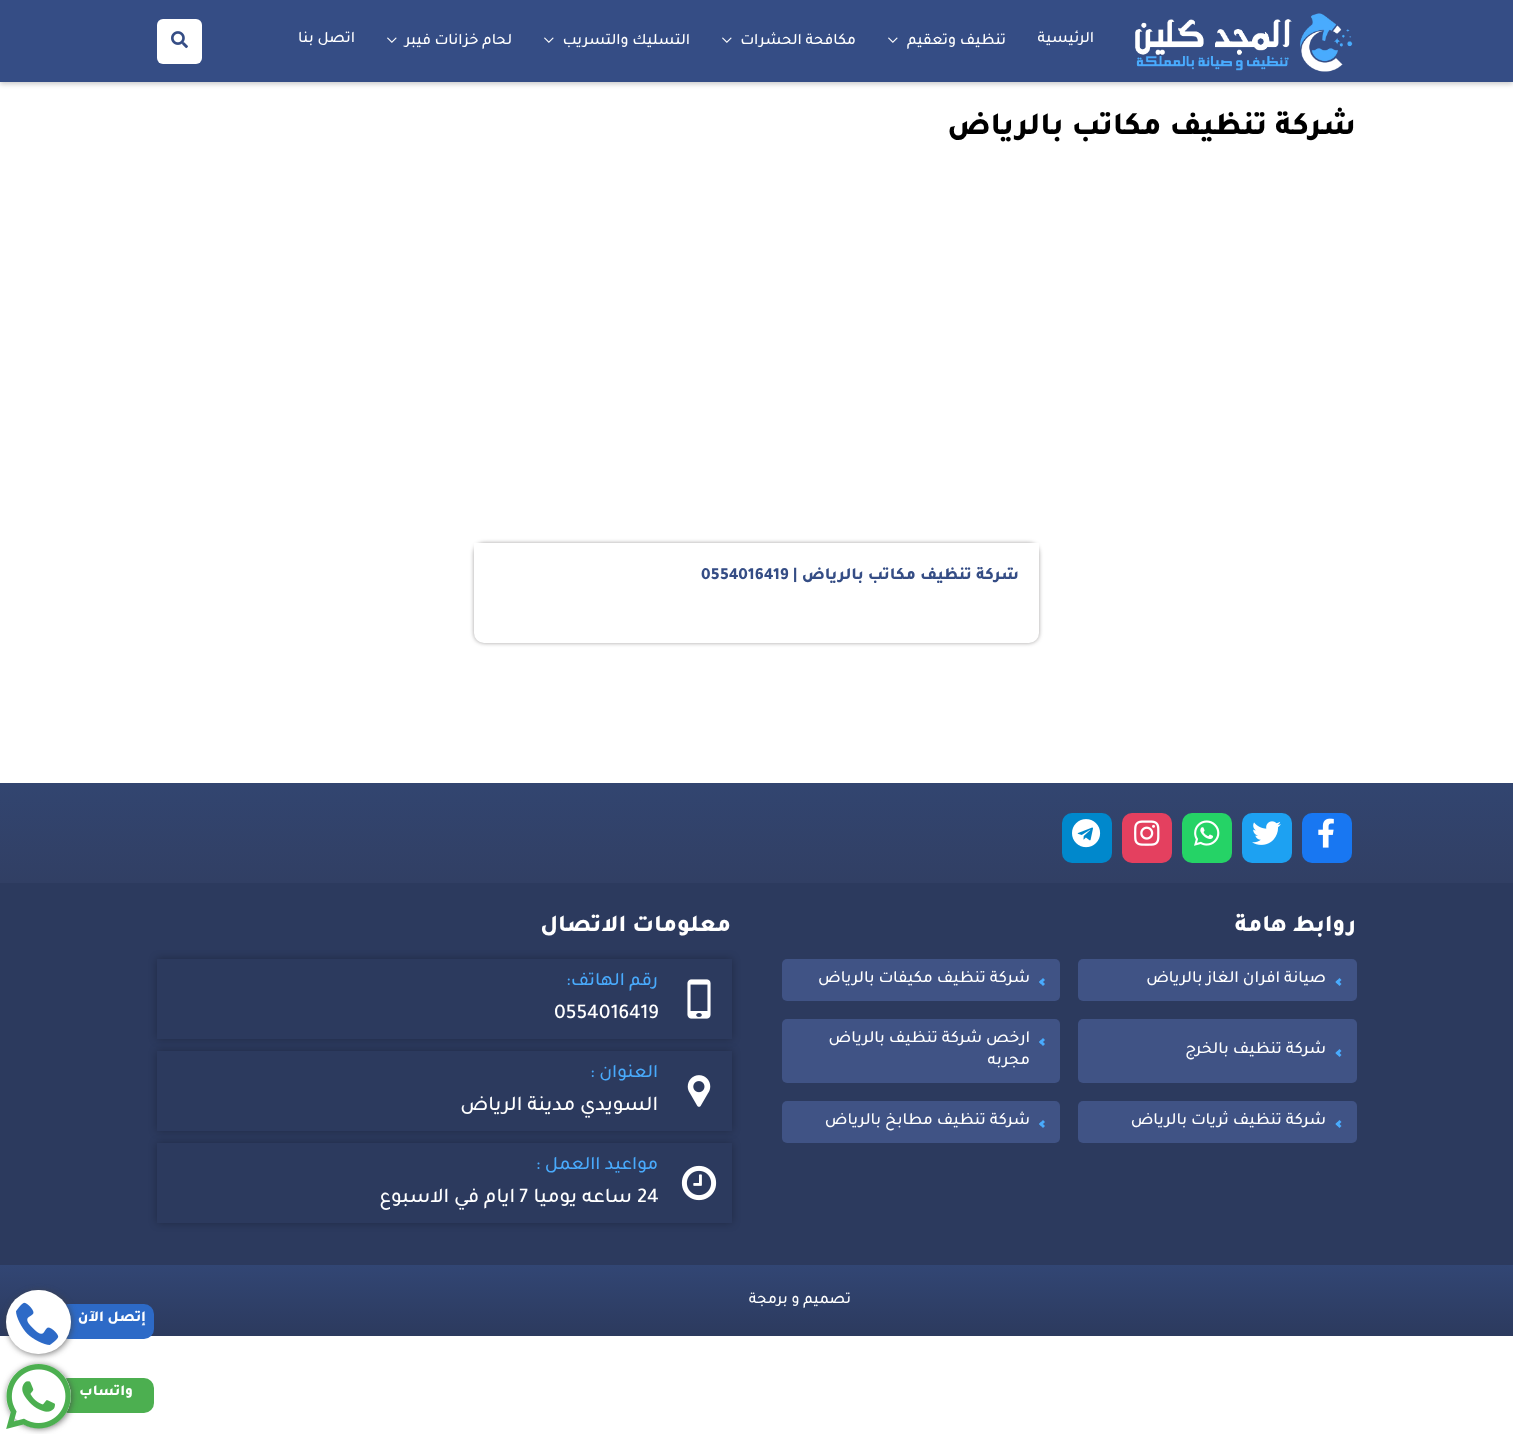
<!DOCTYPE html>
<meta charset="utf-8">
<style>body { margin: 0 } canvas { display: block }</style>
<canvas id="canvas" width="1513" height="1434"></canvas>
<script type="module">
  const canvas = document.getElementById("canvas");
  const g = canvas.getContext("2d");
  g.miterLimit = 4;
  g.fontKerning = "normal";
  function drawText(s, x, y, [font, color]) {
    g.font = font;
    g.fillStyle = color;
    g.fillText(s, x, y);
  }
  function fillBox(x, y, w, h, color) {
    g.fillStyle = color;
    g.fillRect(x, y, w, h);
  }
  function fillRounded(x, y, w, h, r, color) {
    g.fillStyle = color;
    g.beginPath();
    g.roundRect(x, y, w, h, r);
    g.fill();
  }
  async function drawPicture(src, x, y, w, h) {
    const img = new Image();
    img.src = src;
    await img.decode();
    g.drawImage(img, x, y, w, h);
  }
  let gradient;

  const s1 = ["500 16px Tajawal", "#FFFFFF"];
  const s2 = ["800 32px Tajawal", "#000000"];
  const s3 = ["800 17px Tajawal", "#354D85"];
  const s4 = ["800 24px Tajawal", "#FFFFFF"];
  const s5 = ["500 17px Tajawal", "#FFFFFF"];
  const s6 = ["500 19px Tajawal", "#49AAFC"];
  const s7 = ["500 21px Tajawal", "#FFFFFF"];
  const s8 = ["800 15px Tajawal", "#FFFFFF"];

  fillBox(0, 0, 1513, 1434, "#FFFFFF");
  g.fillStyle = "rgba(0, 0, 0, 0.21)";
  g.filter = "blur(2.5px)";
  g.beginPath();
  g.rect(0, 2, 1513, 82);
  g.fill();
  g.filter = "none";
  fillBox(0, 0, 1513, 82, "#354D85");
  await drawPicture("pic1.png", 1135, 13, 218, 59);
  g.direction = "rtl";
  drawText("الرئيسية", 1094, 42, s1);
  drawText("تنظيف وتعقيم", 1006, 44, s1);
  await drawPicture("pic2.png", 888, 37, 10, 6);
  drawText("مكافحة الحشرات", 856, 44, s1);
  await drawPicture("pic2.png", 722, 37, 10, 6);
  drawText("التسليك والتسريب", 690, 44, s1);
  await drawPicture("pic2.png", 544, 37, 10, 6);
  drawText("لحام خزانات فيبر", 512, 44, s1);
  await drawPicture("pic2.png", 387, 37, 10, 6);
  drawText("اتصل بنا", 355, 42, s1);
  fillRounded(157, 19, 45, 45, 6, "#FFFFFF");
  await drawPicture("pic3.png", 171, 31, 17, 18);
  drawText("شركة تنظيف مكاتب بالرياض", 1356, 134, s2);
  g.fillStyle = "rgba(44, 39, 39, 0.44)";
  g.filter = "blur(2px)";
  g.beginPath();
  g.roundRect(474, 543, 565, 100, 10);
  g.fill();
  g.filter = "none";
  g.fillStyle = "#FFFFFF";
  g.beginPath();
  g.roundRect(474, 543, 565, 100, [0, 0, 10, 10]);
  g.fill();
  g.save();
  g.beginPath();
  g.rect(612, 567, 407, 52);
  g.clip();
  drawText("شركة تنظيف مكاتب بالرياض |", 1019, 579, s3);
  g.restore();
  g.direction = "ltr";
  drawText("0554016419", 701, 579, s3);
  gradient = g.createLinearGradient(757, 883, 757, 783);
  gradient.addColorStop(0, "#313F64");
  gradient.addColorStop(1, "#324570");
  g.fillStyle = gradient;
  g.fillRect(0, 783, 1513, 100);
  fillRounded(1302, 813, 50, 50, 10, "#1877F2");
  await drawPicture("pic4.png", 1318, 818, 16, 30);
  fillRounded(1242, 813, 50, 50, 10, "#1DA1F2");
  await drawPicture("pic5.png", 1252, 821, 29, 24);
  fillRounded(1182, 813, 50, 50, 10, "#25D366");
  await drawPicture("pic6.png", 1194, 820, 26, 26);
  fillRounded(1122, 813, 50, 50, 10, "#E4405F");
  await drawPicture("pic7.png", 1134, 820, 26, 26);
  fillRounded(1062, 813, 50, 50, 10, "#0088CC");
  await drawPicture("pic8.png", 1072, 819, 29, 29);
  fillBox(0, 883, 1513, 382, "#2C3A5E");
  g.direction = "rtl";
  drawText("روابط هامة", 1356, 931, s4);
  fillRounded(1078, 959, 279, 42, 5, "#405385");
  g.fillStyle = "#49ABFD";
  g.beginPath();
  g.moveTo(1341.5, 984);
  g.lineTo(1339.5, 986);
  g.lineTo(1335.5, 982);
  g.lineTo(1337.5, 980);
  g.closePath();
  g.fill();
  g.beginPath();
  g.moveTo(1341.5, 980);
  g.lineTo(1337.5, 984);
  g.lineTo(1335.5, 982);
  g.lineTo(1339.5, 978);
  g.closePath();
  g.fill();
  drawText("صيانة افران الغاز بالرياض", 1326, 982, s5);
  fillRounded(782, 959, 278, 42, 5, "#405385");
  g.fillStyle = "#49ABFD";
  g.beginPath();
  g.moveTo(1045, 984);
  g.lineTo(1043, 986);
  g.lineTo(1039, 982);
  g.lineTo(1041, 980);
  g.closePath();
  g.fill();
  g.beginPath();
  g.moveTo(1045, 980);
  g.lineTo(1041, 984);
  g.lineTo(1039, 982);
  g.lineTo(1043, 978);
  g.closePath();
  g.fill();
  drawText("شركة تنظيف مكيفات بالرياض", 1030, 982, s5);
  fillRounded(1078, 1019, 279, 64, 5, "#405385");
  g.fillStyle = "#49ABFD";
  g.beginPath();
  g.moveTo(1341.5, 1055);
  g.lineTo(1339.5, 1057);
  g.lineTo(1335.5, 1053);
  g.lineTo(1337.5, 1051);
  g.closePath();
  g.fill();
  g.beginPath();
  g.moveTo(1341.5, 1051);
  g.lineTo(1337.5, 1055);
  g.lineTo(1335.5, 1053);
  g.lineTo(1339.5, 1049);
  g.closePath();
  g.fill();
  drawText("شركة تنظيف بالخرج", 1326, 1053, s5);
  fillRounded(782, 1019, 278, 64, 5, "#405385");
  g.fillStyle = "#49ABFD";
  g.beginPath();
  g.moveTo(1045, 1044);
  g.lineTo(1043, 1046);
  g.lineTo(1039, 1042);
  g.lineTo(1041, 1040);
  g.closePath();
  g.fill();
  g.beginPath();
  g.moveTo(1045, 1040);
  g.lineTo(1041, 1044);
  g.lineTo(1039, 1042);
  g.lineTo(1043, 1038);
  g.closePath();
  g.fill();
  drawText("ارخص شركة تنظيف بالرياض", 1030, 1042, s5);
  drawText("مجربه", 1030, 1064, s5);
  fillRounded(1078, 1101, 279, 42, 5, "#405385");
  g.fillStyle = "#49ABFD";
  g.beginPath();
  g.moveTo(1341.5, 1126);
  g.lineTo(1339.5, 1128);
  g.lineTo(1335.5, 1124);
  g.lineTo(1337.5, 1122);
  g.closePath();
  g.fill();
  g.beginPath();
  g.moveTo(1341.5, 1122);
  g.lineTo(1337.5, 1126);
  g.lineTo(1335.5, 1124);
  g.lineTo(1339.5, 1120);
  g.closePath();
  g.fill();
  drawText("شركة تنظيف ثريات بالرياض", 1326, 1124, s5);
  fillRounded(782, 1101, 278, 42, 5, "#405385");
  g.fillStyle = "#49ABFD";
  g.beginPath();
  g.moveTo(1045, 1126);
  g.lineTo(1043, 1128);
  g.lineTo(1039, 1124);
  g.lineTo(1041, 1122);
  g.closePath();
  g.fill();
  g.beginPath();
  g.moveTo(1045, 1122);
  g.lineTo(1041, 1126);
  g.lineTo(1039, 1124);
  g.lineTo(1043, 1120);
  g.closePath();
  g.fill();
  drawText("شركة تنظيف مطابخ بالرياض", 1030, 1124, s5);
  drawText("معلومات الاتصال", 731, 931, s4);
  g.save();
  g.beginPath();
  g.moveTo(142, 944);
  g.lineTo(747, 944);
  g.lineTo(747, 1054);
  g.lineTo(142, 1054);
  g.closePath();
  g.moveTo(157, 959);
  g.lineTo(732, 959);
  g.lineTo(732, 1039);
  g.lineTo(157, 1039);
  g.closePath();
  g.clip("evenodd");
  g.fillStyle = "rgba(0, 0, 0, 0.28)";
  g.filter = "blur(4.5px)";
  g.beginPath();
  g.rect(157, 959, 575, 80);
  g.fill();
  g.filter = "none";
  g.restore();
  await drawPicture("pic9.png", 687, 979, 24, 40);
  drawText("رقم الهاتف:", 658, 985, s6);
  g.direction = "ltr";
  drawText("0554016419", 554, 1018, s7);
  g.save();
  g.beginPath();
  g.moveTo(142, 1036);
  g.lineTo(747, 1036);
  g.lineTo(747, 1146);
  g.lineTo(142, 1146);
  g.closePath();
  g.moveTo(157, 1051);
  g.lineTo(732, 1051);
  g.lineTo(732, 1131);
  g.lineTo(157, 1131);
  g.closePath();
  g.clip("evenodd");
  g.fillStyle = "rgba(0, 0, 0, 0.28)";
  g.filter = "blur(4.5px)";
  g.beginPath();
  g.rect(157, 1051, 575, 80);
  g.fill();
  g.filter = "none";
  g.restore();
  await drawPicture("pic10.png", 687, 1075, 24, 32);
  g.direction = "rtl";
  drawText("العنوان :", 658, 1077, s6);
  drawText("السويدي مدينة الرياض", 658, 1110, s7);
  g.save();
  g.beginPath();
  g.moveTo(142, 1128);
  g.lineTo(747, 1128);
  g.lineTo(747, 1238);
  g.lineTo(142, 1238);
  g.closePath();
  g.moveTo(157, 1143);
  g.lineTo(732, 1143);
  g.lineTo(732, 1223);
  g.lineTo(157, 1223);
  g.closePath();
  g.clip("evenodd");
  g.fillStyle = "rgba(0, 0, 0, 0.28)";
  g.filter = "blur(4.5px)";
  g.beginPath();
  g.rect(157, 1143, 575, 80);
  g.fill();
  g.filter = "none";
  g.restore();
  await drawPicture("pic11.png", 681, 1165, 36, 36);
  drawText("مواعيد االعمل :", 658, 1169, s6);
  g.direction = "ltr";
  drawText("24", 637, 1202, s7);
  g.direction = "rtl";
  drawText("ساعه يوميا", 632, 1202, s7);
  g.direction = "ltr";
  drawText("7", 519, 1202, s7);
  g.direction = "rtl";
  drawText("ايام في الاسبوع", 515, 1202, s7);
  gradient = g.createLinearGradient(757, 1336, 757, 1265);
  gradient.addColorStop(0, "#2C3A5E");
  gradient.addColorStop(1, "#324674");
  g.fillStyle = gradient;
  g.fillRect(0, 1265, 1513, 71);
  drawText("تصميم و برمجة", 851, 1303, s1);
  fillRounded(58, 1304, 96, 35, 10, "#2D6AC7");
  drawText("إتصل الآن", 146, 1321, s8);
  g.fillStyle = "rgba(68, 68, 68, 0.71)";
  g.filter = "blur(3px)";
  g.beginPath();
  g.roundRect(7, 1291, 65, 64, 32);
  g.fill();
  g.filter = "none";
  fillRounded(6, 1290, 65, 64, 32, "#FFFFFF");
  await drawPicture("pic12.png", 16, 1302, 43, 43);
  fillRounded(58, 1378, 96, 35, 10, "#4CAF50");
  drawText("واتساب", 133, 1395, s8);
  g.fillStyle = "rgba(68, 68, 68, 0.71)";
  g.filter = "blur(3px)";
  g.beginPath();
  g.roundRect(7, 1365, 65, 64, 32);
  g.fill();
  g.filter = "none";
  fillRounded(6, 1364, 65, 64, 32, "#FFFFFF");
  await drawPicture("pic13.png", 6, 1364, 65, 65);
</script>
